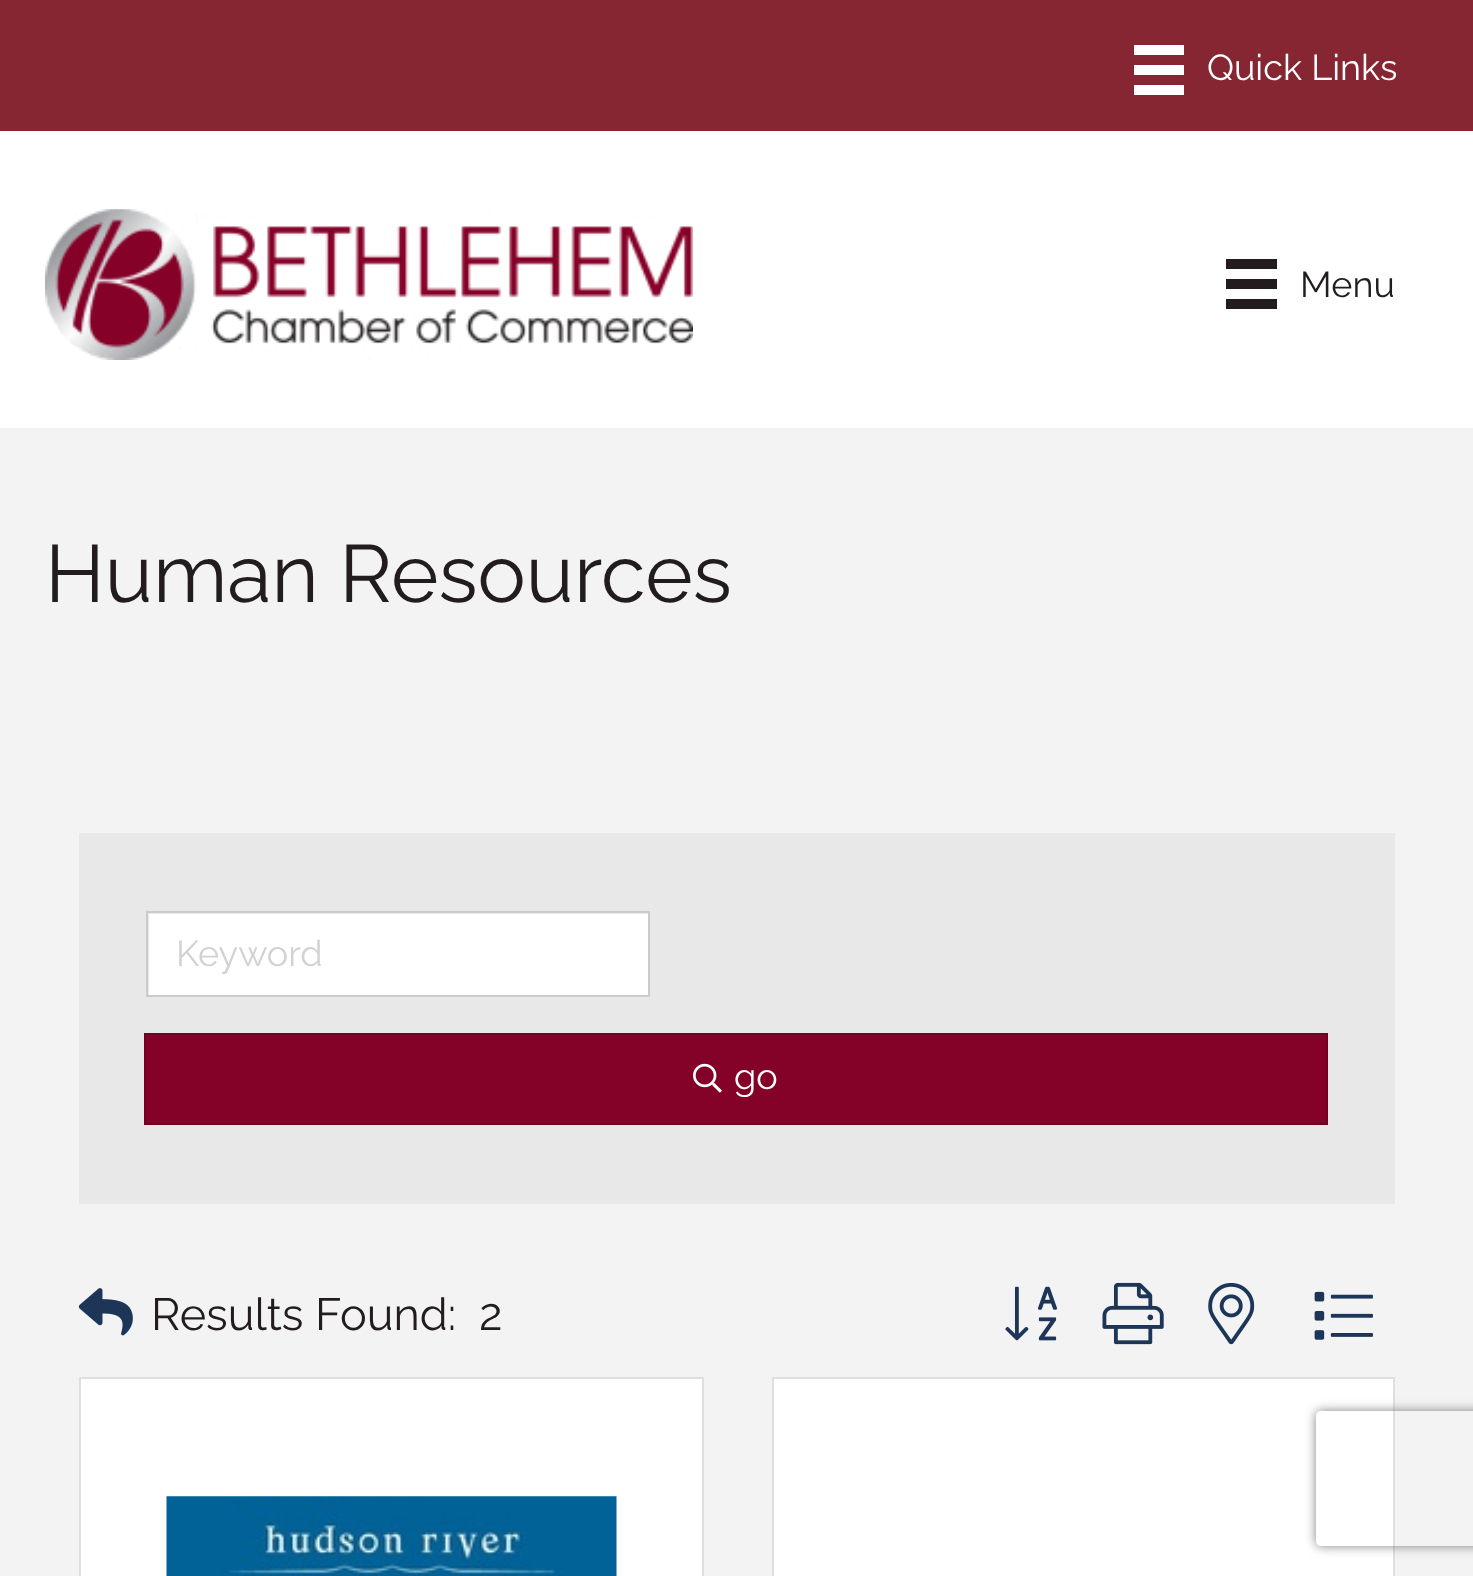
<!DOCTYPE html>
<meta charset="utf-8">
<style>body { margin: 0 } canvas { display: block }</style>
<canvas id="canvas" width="1473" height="1576"></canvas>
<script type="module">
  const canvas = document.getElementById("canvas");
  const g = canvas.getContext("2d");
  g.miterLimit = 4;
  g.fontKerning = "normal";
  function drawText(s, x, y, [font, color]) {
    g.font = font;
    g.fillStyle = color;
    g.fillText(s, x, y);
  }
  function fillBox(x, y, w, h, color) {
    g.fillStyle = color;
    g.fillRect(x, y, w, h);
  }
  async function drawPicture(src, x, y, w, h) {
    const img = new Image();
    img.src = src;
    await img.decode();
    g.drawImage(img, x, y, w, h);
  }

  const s1 = ["36px Raleway", "#FFFFFF"];
  const s2 = ["36px Raleway", "#221C1E"];
  const s3 = ["81px Raleway", "#221C1E"];
  const s4 = ["36px Raleway", "#D2D2D2"];
  const s5 = ["45px Raleway", "#221C1E"];

  fillBox(0, 0, 1473, 1576, "#FFFFFF");
  fillBox(0, 0, 1473, 131, "#862633");
  fillBox(1134, 45, 50, 10, "#FFFFFF");
  fillBox(1134, 65, 50, 10, "#FFFFFF");
  fillBox(1134, 85, 50, 10, "#FFFFFF");
  drawText("Quick Links", 1207, 80, s1);
  await drawPicture("pic1.png", 45, 209, 648, 151);
  fillBox(1226, 259, 51, 10, "#221C1E");
  fillBox(1226, 279, 51, 10, "#221C1E");
  fillBox(1226, 299, 51, 10, "#221C1E");
  drawText("Menu", 1300, 297, s2);
  fillBox(0, 428, 1473, 1148, "#F3F3F3");
  drawText("Human Resources", 45, 602, s3);
  fillBox(79, 833, 1316, 371, "#E8E8E8");
  fillBox(149, 914, 499, 81, "#FFFFFF");
  g.strokeStyle = "#CBCBCB";
  g.lineWidth = 2;
  g.strokeRect(147, 912, 502, 84);
  drawText("Keyword", 176, 966, s4);
  g.fillStyle = "#840128";
  g.beginPath();
  g.rect(145, 1034, 1182, 90);
  g.fill();
  g.strokeStyle = "#740123";
  g.stroke();
  await drawPicture("pic2.png", 693, 1063, 29, 30);
  drawText("go", 734, 1089, s1);
  await drawPicture("pic3.png", 78, 1288, 55, 48);
  drawText("Results Found:", 151, 1330, s5);
  drawText("2", 479, 1330, s5);
  await drawPicture("pic4.png", 1005, 1286, 52, 55);
  await drawPicture("pic5.png", 1102, 1282, 62, 63);
  await drawPicture("pic6.png", 1208, 1282, 47, 63);
  await drawPicture("pic7.png", 1314, 1291, 59, 49);
  g.fillStyle = "#FFFFFF";
  g.beginPath();
  g.rect(80, 1378, 623, 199);
  g.fill();
  g.strokeStyle = "#DFDFDF";
  g.stroke();
  await drawPicture("pic8.png", 166, 1496, 451, 80);
  g.beginPath();
  g.rect(773, 1378, 621, 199);
  g.fill();
  g.stroke();
  g.save();
  g.beginPath();
  g.moveTo(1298, 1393);
  g.lineTo(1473, 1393);
  g.lineTo(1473, 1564);
  g.lineTo(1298, 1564);
  g.closePath();
  g.moveTo(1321, 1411);
  g.lineTo(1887, 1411);
  g.bezierCurveTo(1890, 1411, 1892, 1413, 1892, 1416);
  g.lineTo(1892, 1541);
  g.bezierCurveTo(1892, 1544, 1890, 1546, 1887, 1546);
  g.lineTo(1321, 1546);
  g.bezierCurveTo(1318, 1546, 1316, 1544, 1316, 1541);
  g.lineTo(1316, 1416);
  g.bezierCurveTo(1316, 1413, 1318, 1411, 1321, 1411);
  g.closePath();
  g.clip("evenodd");
  g.fillStyle = "#808080";
  g.filter = "blur(5.5px)";
  g.beginPath();
  g.roundRect(1316, 1411, 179, 135, 5);
  g.fill();
  g.filter = "none";
  g.restore();
</script>
